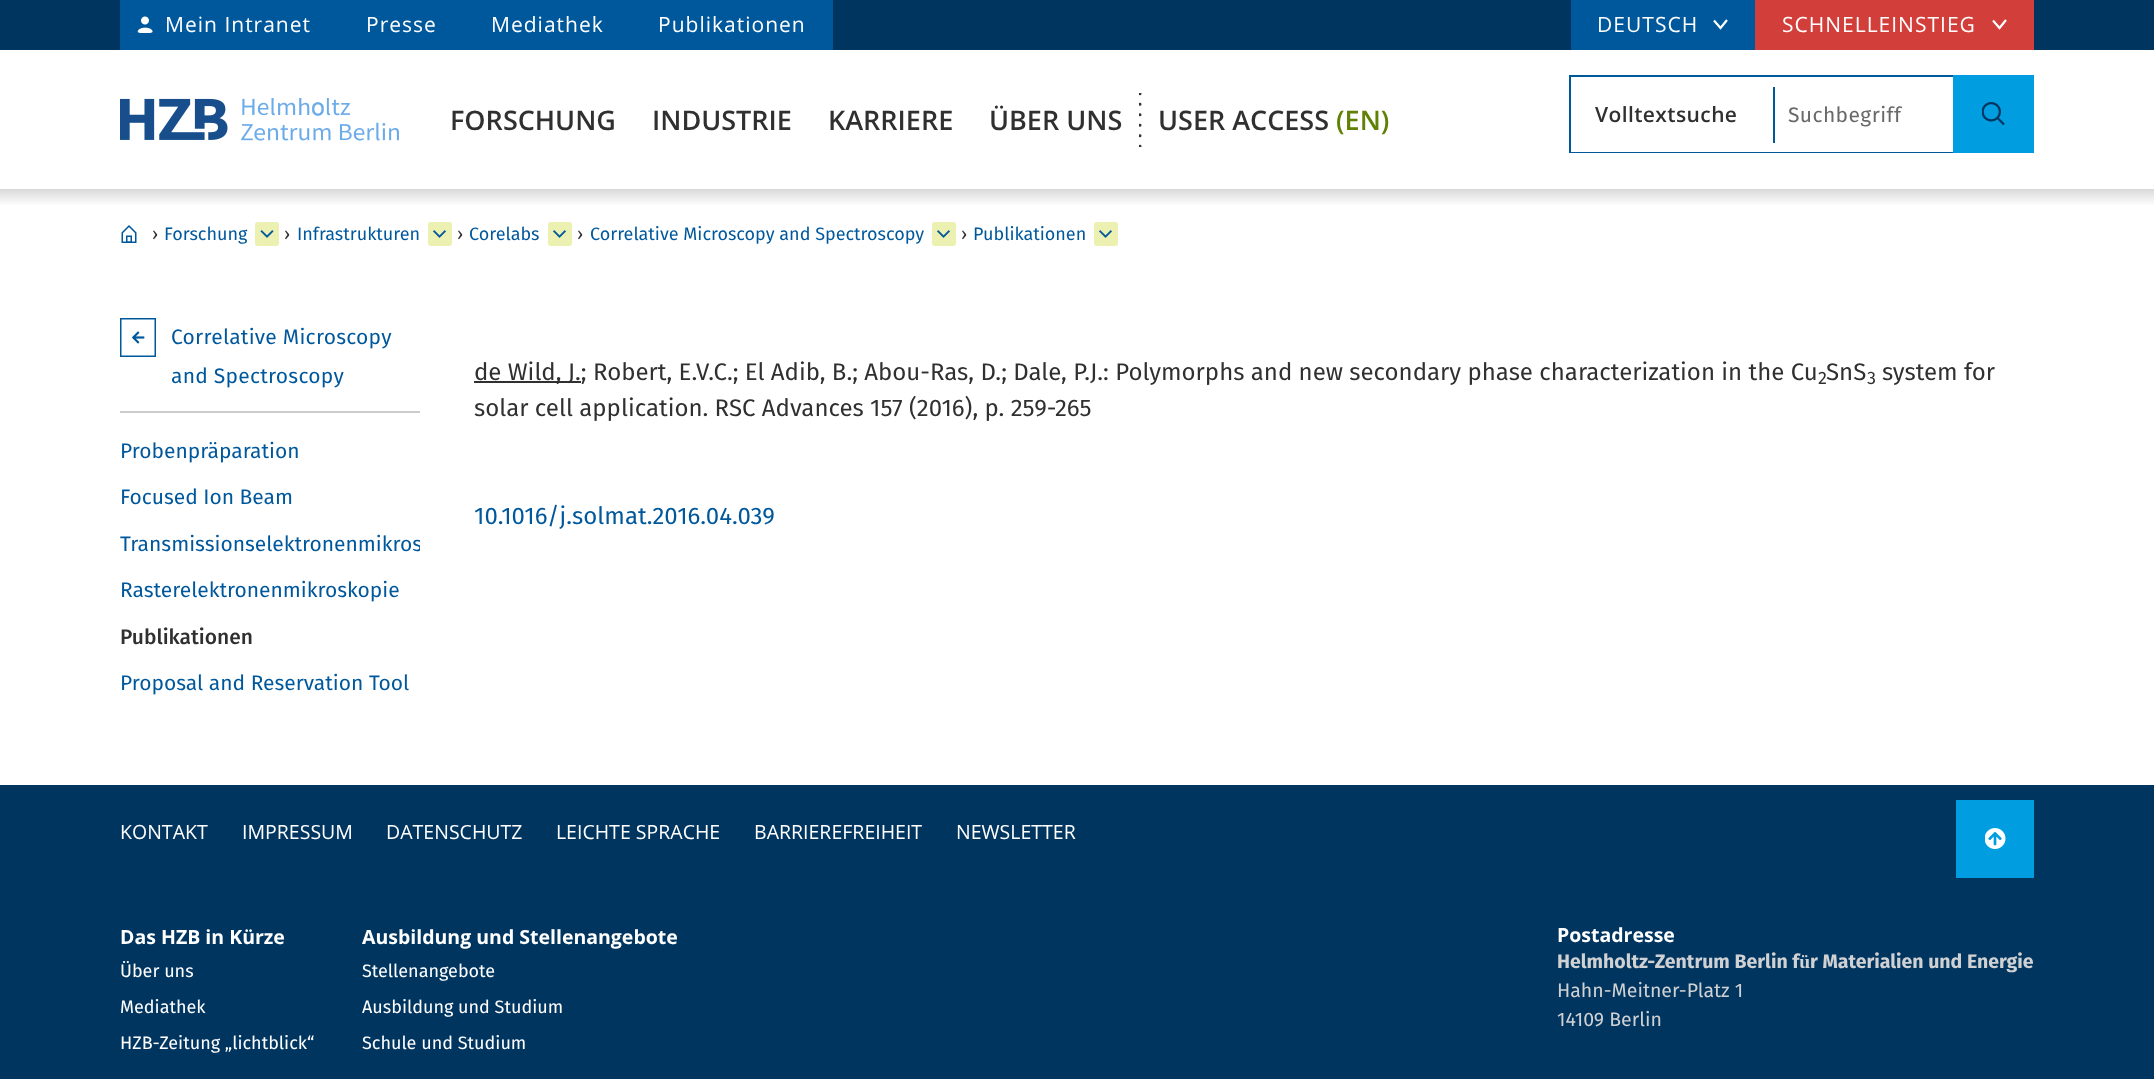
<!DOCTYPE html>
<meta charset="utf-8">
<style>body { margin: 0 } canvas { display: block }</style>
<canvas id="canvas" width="2154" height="1079"></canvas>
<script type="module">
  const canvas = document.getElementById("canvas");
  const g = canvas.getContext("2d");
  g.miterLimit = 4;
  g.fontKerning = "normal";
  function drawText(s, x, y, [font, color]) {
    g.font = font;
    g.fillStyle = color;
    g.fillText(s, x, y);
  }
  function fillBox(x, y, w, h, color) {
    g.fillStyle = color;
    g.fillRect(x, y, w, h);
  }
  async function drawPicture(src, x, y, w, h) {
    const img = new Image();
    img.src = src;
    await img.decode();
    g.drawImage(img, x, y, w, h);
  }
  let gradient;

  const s1 = ["21px Open Sans", "#FFFFFF"];
  const s2 = ["600 27px Open Sans", "#303030"];
  const s3 = ["600 27px Open Sans", "#608006"];
  const s4 = ["600 21px Open Sans", "#303030"];
  const s5 = ["21px Fira Sans", "#696969"];
  const s6 = ["18px Fira Sans", "#303030"];
  const s7 = ["18px Fira Sans", "#00589C"];
  const s8 = ["21px Fira Sans", "#00589C"];
  const s9 = ["500 21px Fira Sans", "#303030"];
  const s10 = ["24px Fira Sans", "#303030"];
  const s11 = ["24px Fira Sans", "#00589C"];
  const s12 = ["19.5px Open Sans", "#FFFFFF"];
  const s13 = ["bold 19.5px Open Sans", "#FFFFFF"];
  const s14 = ["18px Fira Sans", "#FFFFFF"];
  const s15 = ["bold 19.5px Fira Sans", "#D0D1D3"];
  const s16 = ["19.5px Fira Sans", "#D0D1D3"];

  fillBox(0, 0, 2154, 1079, "#FFFFFF");
  fillBox(0, 0, 2154, 50, "#003560");
  fillBox(120, 0, 713, 50, "#00589C");
  await drawPicture("pic1.png", 137, 16, 16, 17);
  g.letterSpacing = "1px";
  drawText("Mein Intranet", 165, 32, s1);
  drawText("Presse", 366, 32, s1);
  drawText("Mediathek", 491, 32, s1);
  drawText("Publikationen", 658, 32, s1);
  fillBox(1571, 0, 184, 50, "#00589C");
  drawText("DEUTSCH", 1597, 32, s1);
  g.beginPath();
  g.moveTo(1727, 20);
  g.lineTo(1720.5, 28);
  g.lineTo(1714, 20.5);
  g.strokeStyle = "#FFFFFF";
  g.lineWidth = 2.2;
  g.stroke();
  fillBox(1755, 0, 279, 50, "#D23F3B");
  drawText("SCHNELLEINSTIEG", 1782, 32, s1);
  g.beginPath();
  g.moveTo(2006, 20);
  g.lineTo(1999.5, 28);
  g.lineTo(1993, 20.5);
  g.stroke();
  await drawPicture("pic2.png", 120, 98, 279, 43);
  g.letterSpacing = "0px";
  drawText("FORSCHUNG", 450, 130, s2);
  drawText("INDUSTRIE", 652, 130, s2);
  drawText("KARRIERE", 828, 130, s2);
  drawText("ÜBER UNS", 989, 130, s2);
  await drawPicture("pic3.png", 1139, 93, 3, 54);
  drawText("USER ACCESS", 1158, 130, s2);
  drawText("(EN)", 1336, 130, s3);
  g.strokeStyle = "#00589C";
  g.lineWidth = 2;
  g.strokeRect(1570, 76, 463, 76);
  fillBox(1571, 151, 382, 1, "#FFFFFF");
  g.letterSpacing = "0.4px";
  drawText("Volltextsuche", 1595, 122, s4);
  fillBox(1773, 87, 2, 56, "#00589C");
  drawText("Suchbegriff", 1788, 122, s5);
  fillBox(1953, 75, 81, 78, "#009EE0");
  await drawPicture("pic4.png", 1982, 102, 23, 24);
  gradient = g.createLinearGradient(1077, 189, 1077, 206);
  gradient.addColorStop(0, "#D9D9D9");
  gradient.addColorStop(1, "#FFFFFF");
  g.fillStyle = gradient;
  g.fillRect(0, 189, 2154, 16);
  await drawPicture("pic5.png", 121, 225, 16, 18);
  g.letterSpacing = "0px";
  drawText("›", 152, 240, s6);
  drawText("Forschung", 164, 240, s7);
  g.fillStyle = "#ECF0B1";
  g.beginPath();
  g.roundRect(256, 223, 22, 22, 2);
  g.fill();
  g.strokeStyle = "#ECF0B1";
  g.stroke();
  await drawPicture("pic6.png", 260, 230, 14, 8);
  drawText("›", 284, 240, s6);
  drawText("Infrastrukturen", 297, 240, s7);
  g.fillStyle = "#ECF0B1";
  g.beginPath();
  g.roundRect(429, 223, 22, 22, 2);
  g.fill();
  g.stroke();
  await drawPicture("pic7.png", 433, 230, 13, 8);
  drawText("›", 457, 240, s6);
  drawText("Corelabs", 469, 240, s7);
  g.fillStyle = "#ECF0B1";
  g.beginPath();
  g.roundRect(549, 223, 22, 22, 2);
  g.fill();
  g.stroke();
  await drawPicture("pic7.png", 553, 230, 13, 8);
  drawText("›", 577, 240, s6);
  drawText("Correlative Microscopy and Spectroscopy", 590, 240, s7);
  g.fillStyle = "#ECF0B1";
  g.beginPath();
  g.roundRect(933, 223, 22, 22, 2);
  g.fill();
  g.stroke();
  await drawPicture("pic7.png", 937, 230, 13, 8);
  drawText("›", 961, 240, s6);
  drawText("Publikationen", 973, 240, s7);
  g.fillStyle = "#ECF0B1";
  g.beginPath();
  g.roundRect(1095, 223, 22, 22, 2);
  g.fill();
  g.stroke();
  await drawPicture("pic7.png", 1099, 230, 13, 8);
  fillBox(120, 411, 300, 2, "#CCCCCC");
  await drawPicture("pic8.png", 120, 318, 36, 39);
  g.letterSpacing = "0.25px";
  drawText("Correlative Microscopy", 171, 344, s8);
  drawText("and Spectroscopy", 171, 383, s8);
  g.letterSpacing = "0px";
  drawText("Probenpräparation", 120, 458, s8);
  drawText("Focused Ion Beam", 120, 504, s8);
  g.save();
  g.beginPath();
  g.rect(120, 521, 300, 46);
  g.clip();
  drawText("Transmissionselektronenmikros", 120, 551, s8);
  g.restore();
  drawText("Rasterelektronenmikroskopie", 120, 597, s8);
  drawText("Publikationen", 120, 644, s9);
  drawText("Proposal and Reservation Tool", 120, 690, s8);
  fillBox(474, 381, 107, 2, "#303030");
  drawText("de Wild, J.; Robert, E.V.C.; El Adib, B.; Abou-Ras, D.; Dale, P.J.: Polymorphs and new secondary phase characterization in the Cu", 474, 380, s10);
  drawText("2", 1818, 384, s6);
  drawText("SnS", 1826, 380, s10);
  drawText("3", 1867, 384, s6);
  drawText("system for", 1882, 380, s10);
  drawText("solar cell application. RSC Advances 157 (2016), p. 259-265", 474, 416, s10);
  drawText("10.1016/j.solmat.2016.04.039", 474, 524, s11);
  fillBox(0, 785, 2154, 294, "#003560");
  drawText("KONTAKT", 120, 839, s12);
  drawText("IMPRESSUM", 242, 839, s12);
  drawText("DATENSCHUTZ", 386, 839, s12);
  drawText("LEICHTE SPRACHE", 556, 839, s12);
  drawText("BARRIEREFREIHEIT", 754, 839, s12);
  drawText("NEWSLETTER", 956, 839, s12);
  fillBox(1956, 800, 78, 78, "#009EE0");
  await drawPicture("pic9.png", 1985, 828, 21, 21);
  drawText("Das HZB in Kürze", 120, 944, s13);
  drawText("Über uns", 120, 977, s14);
  drawText("Mediathek", 120, 1013, s14);
  drawText("HZB-Zeitung „lichtblick“", 120, 1049, s14);
  drawText("Ausbildung und Stellenangebote", 362, 944, s13);
  drawText("Stellenangebote", 362, 977, s14);
  drawText("Ausbildung und Studium", 362, 1013, s14);
  drawText("Schule und Studium", 362, 1049, s14);
  drawText("Postadresse", 1557, 942, s13);
  drawText("Helmholtz-Zentrum Berlin für Materialien und Energie", 1557, 968, s15);
  drawText("Hahn-Meitner-Platz 1", 1557, 997, s16);
  drawText("14109 Berlin", 1557, 1026, s16);
</script>
